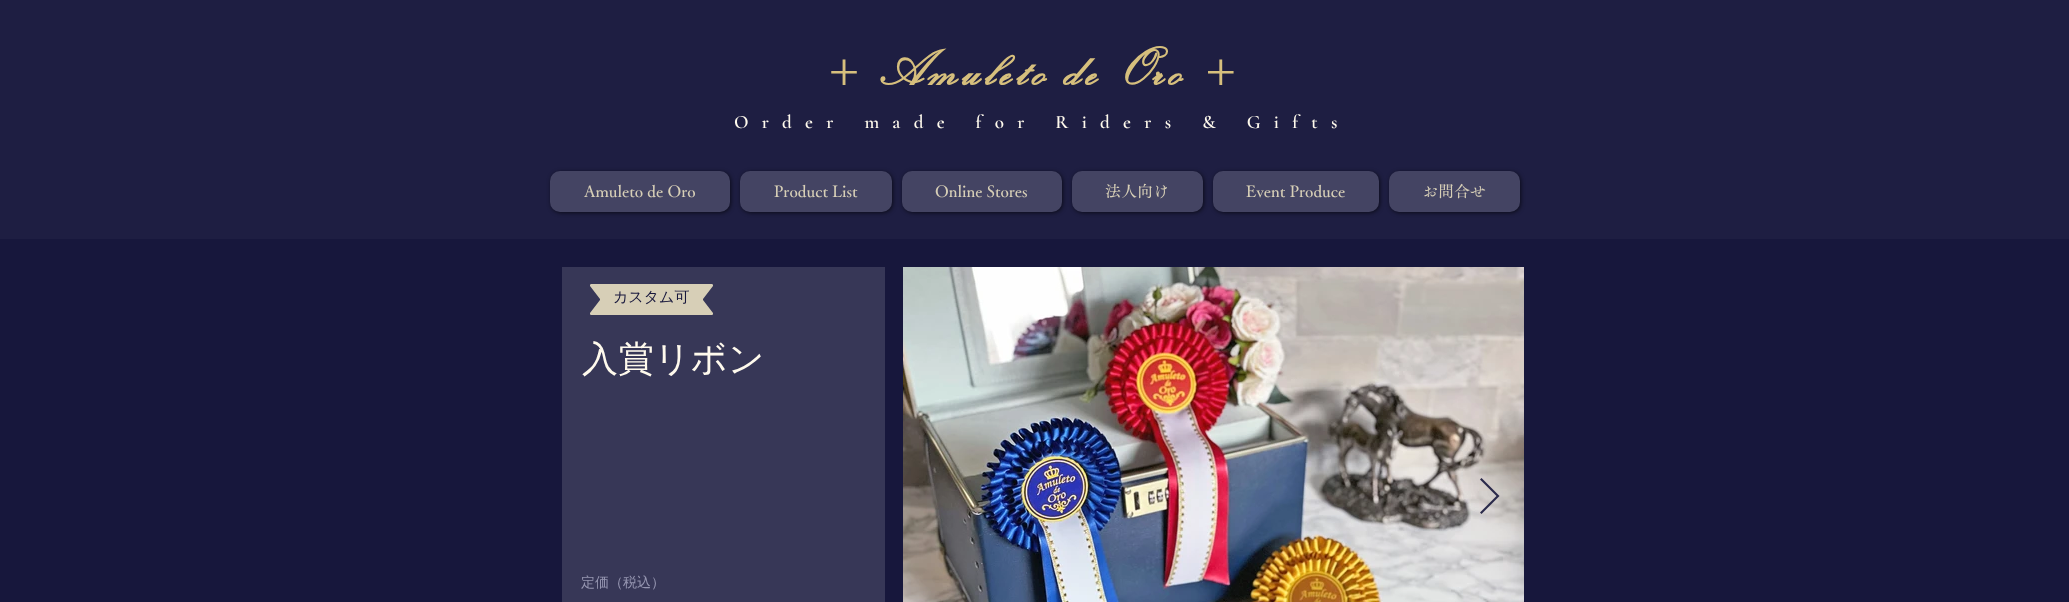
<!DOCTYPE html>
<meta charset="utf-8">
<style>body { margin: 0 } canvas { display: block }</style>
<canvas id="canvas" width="2069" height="602"></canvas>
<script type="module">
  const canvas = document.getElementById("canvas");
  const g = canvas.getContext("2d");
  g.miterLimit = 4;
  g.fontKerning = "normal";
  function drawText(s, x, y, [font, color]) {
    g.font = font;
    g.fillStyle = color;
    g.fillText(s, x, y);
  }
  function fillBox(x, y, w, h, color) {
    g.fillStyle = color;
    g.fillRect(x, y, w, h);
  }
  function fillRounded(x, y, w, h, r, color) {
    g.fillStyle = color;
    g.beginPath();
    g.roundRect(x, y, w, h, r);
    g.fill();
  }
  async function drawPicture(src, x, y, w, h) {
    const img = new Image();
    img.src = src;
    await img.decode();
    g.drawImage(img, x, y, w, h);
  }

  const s1 = ["bold 50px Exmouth", "#D6BF7D"];
  const s2 = ["600 19px Cormorant Garamond", "#FFFAED"];
  const s3 = ["500 16px 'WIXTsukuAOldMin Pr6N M'", "#D7CFB7"];
  const s4 = ["500 15px WenQuanYi Zen Hei", "#17173C"];
  const s5 = ["500 36px WenQuanYi Zen Hei", "#FFFAED"];
  const s6 = ["500 14px WenQuanYi Zen Hei", "#9696B1"];

  fillBox(0, 0, 2069, 602, "#17173C");
  fillBox(0, 0, 2069, 239, "#1E1E42");
  g.letterSpacing = "5px";
  drawText("+ Amuleto de Oro +", 829, 85, s1);
  g.letterSpacing = "13.3px";
  drawText("Order made for Riders & Gifts", 734, 128, s2);
  g.fillStyle = "rgba(0, 0, 0, 0.6)";
  g.filter = "blur(2px)";
  g.beginPath();
  g.roundRect(551, 172, 180, 41, 10);
  g.fill();
  g.filter = "none";
  fillRounded(550, 171, 180, 41, 10, "#444463");
  g.letterSpacing = "0px";
  drawText("Amuleto de Oro", 584, 197, s3);
  g.fillStyle = "rgba(0, 0, 0, 0.6)";
  g.filter = "blur(2px)";
  g.beginPath();
  g.roundRect(741, 172, 152, 41, 10);
  g.fill();
  g.filter = "none";
  fillRounded(740, 171, 152, 41, 10, "#444463");
  drawText("Product List", 774, 197, s3);
  g.fillStyle = "rgba(0, 0, 0, 0.6)";
  g.filter = "blur(2px)";
  g.beginPath();
  g.roundRect(903, 172, 160, 41, 10);
  g.fill();
  g.filter = "none";
  fillRounded(902, 171, 160, 41, 10, "#444463");
  drawText("Online Stores", 935, 197, s3);
  g.fillStyle = "rgba(0, 0, 0, 0.6)";
  g.filter = "blur(2px)";
  g.beginPath();
  g.roundRect(1073, 172, 131, 41, 10);
  g.fill();
  g.filter = "none";
  fillRounded(1072, 171, 131, 41, 10, "#444463");
  drawText("法人向け", 1105, 197, s3);
  g.fillStyle = "rgba(0, 0, 0, 0.6)";
  g.filter = "blur(2px)";
  g.beginPath();
  g.roundRect(1214, 172, 166, 41, 10);
  g.fill();
  g.filter = "none";
  fillRounded(1213, 171, 166, 41, 10, "#444463");
  drawText("Event Produce", 1246, 197, s3);
  g.fillStyle = "rgba(0, 0, 0, 0.6)";
  g.filter = "blur(2px)";
  g.beginPath();
  g.roundRect(1390, 172, 131, 41, 10);
  g.fill();
  g.filter = "none";
  fillRounded(1389, 171, 131, 41, 10, "#444463");
  drawText("お問合せ", 1422, 197, s3);
  fillBox(562, 267, 323, 335, "#373757");
  g.fillStyle = "#D7CFB7";
  g.beginPath();
  g.moveTo(713, 286);
  g.bezierCurveTo(713, 285, 713, 284, 712, 284);
  g.lineTo(591, 284);
  g.bezierCurveTo(590, 284, 590, 285, 590, 286);
  g.lineTo(600, 299);
  g.lineTo(600, 300);
  g.lineTo(590, 313);
  g.bezierCurveTo(590, 314, 590, 315, 591, 315);
  g.lineTo(712, 315);
  g.bezierCurveTo(713, 315, 713, 314, 713, 313);
  g.lineTo(703, 300);
  g.lineTo(703, 299);
  g.closePath();
  g.fill();
  drawText("カスタム可", 613, 302, s4);
  drawText("入賞リボン", 582, 371, s5);
  drawText("定価（税込）", 581, 587, s6);
  await drawPicture("pic1.png", 903, 267, 621, 335);
  g.fillStyle = "rgba(23, 23, 60, 0.9)";
  g.beginPath();
  g.moveTo(1480, 479.5);
  g.lineTo(1481.5, 478);
  g.lineTo(1499.5, 496);
  g.lineTo(1481.5, 514);
  g.lineTo(1480, 512.5);
  g.lineTo(1496.5, 496);
  g.closePath();
  g.fill();
</script>
